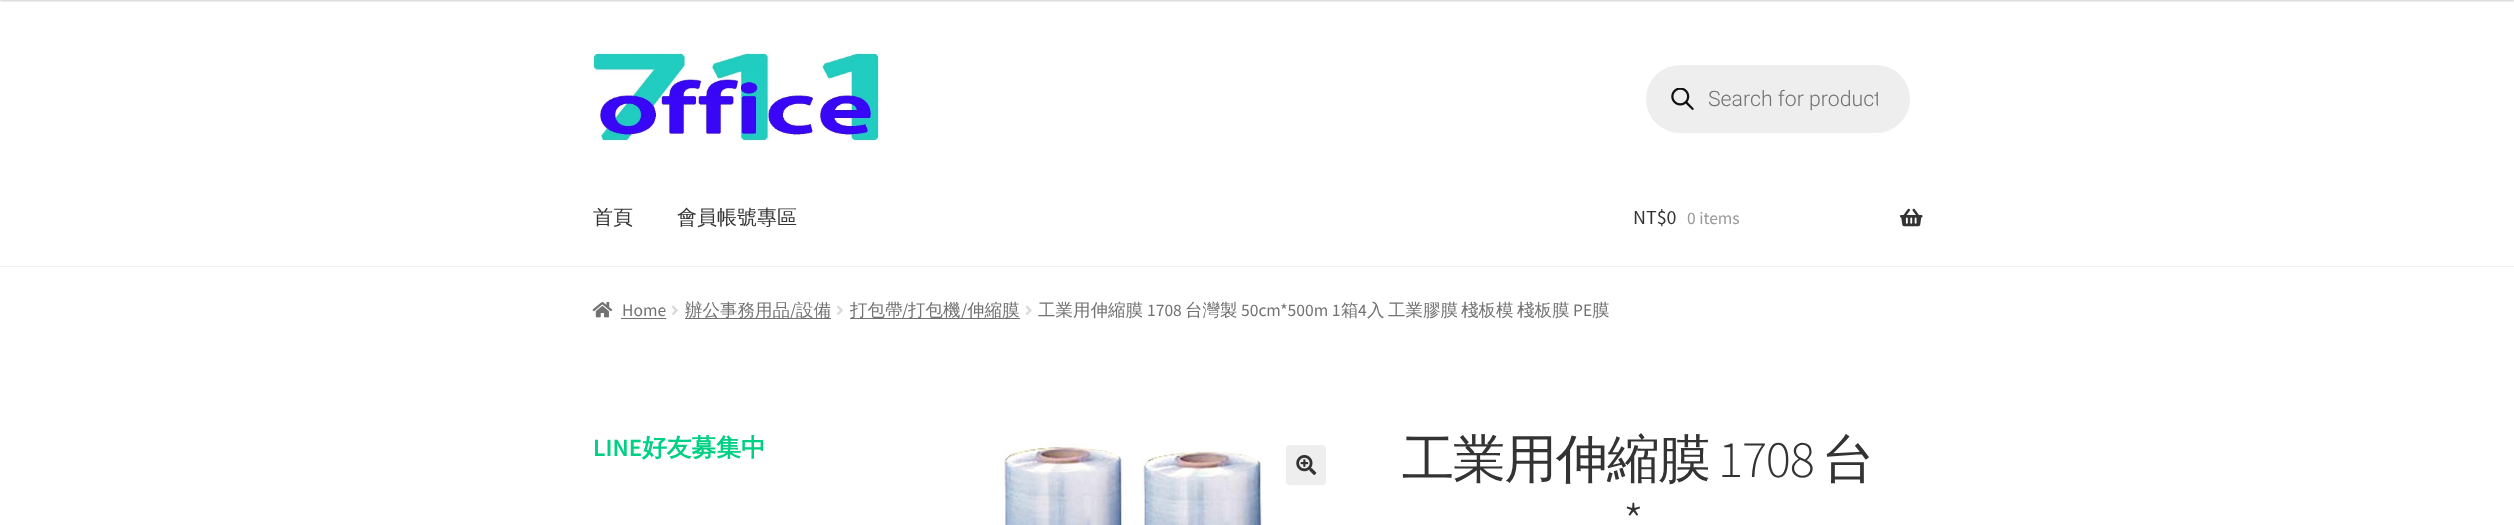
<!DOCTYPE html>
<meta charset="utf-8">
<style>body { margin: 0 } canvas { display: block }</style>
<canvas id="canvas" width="2514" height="525"></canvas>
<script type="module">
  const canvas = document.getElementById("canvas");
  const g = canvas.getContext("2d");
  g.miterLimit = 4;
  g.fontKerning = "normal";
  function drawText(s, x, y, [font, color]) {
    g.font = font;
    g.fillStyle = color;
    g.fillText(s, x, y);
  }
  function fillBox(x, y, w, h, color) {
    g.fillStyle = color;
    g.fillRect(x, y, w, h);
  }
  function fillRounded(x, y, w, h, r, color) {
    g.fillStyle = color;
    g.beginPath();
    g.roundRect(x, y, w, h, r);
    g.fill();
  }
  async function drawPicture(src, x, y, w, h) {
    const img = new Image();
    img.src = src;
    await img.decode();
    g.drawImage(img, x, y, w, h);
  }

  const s1 = ["300 21.25px Roboto", "#727272"];
  const s2 = ["500 20px WenQuanYi Zen Hei", "#333333"];
  const s3 = ["20px Source Sans Pro", "#333333"];
  const s4 = ["17.5px Source Sans Pro", "#999999"];
  const s5 = ["17.5px Source Sans Pro", "#727272"];
  const s6 = ["500 17.5px WenQuanYi Zen Hei", "#727272"];
  const s7 = ["600 24.75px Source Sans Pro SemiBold", "#00D084"];
  const s8 = ["bold 24.75px WenQuanYi Zen Hei", "#00D084"];
  const s9 = ["500 52.5px WenQuanYi Zen Hei", "#333333"];
  const s10 = ["300 52.5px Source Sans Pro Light", "#333333"];

  fillBox(0, 0, 2514, 525, "#FFFFFF");
  g.fillStyle = "rgba(0, 0, 0, 0.2)";
  g.filter = "blur(1px)";
  g.beginPath();
  g.rect(0, -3, 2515, 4);
  g.fill();
  g.filter = "none";
  fillBox(0, 266, 2514, 1, "#F0F0F0");
  await drawPicture("pic1.png", 592, 53, 288, 88);
  fillRounded(1646, 65, 264, 68, 34, "#EEEEEE");
  await drawPicture("pic2.png", 1671, 88, 23, 22);
  g.save();
  g.beginPath();
  g.rect(1709, 86, 169, 25);
  g.clip();
  drawText("Search for product", 1708, 106, s1);
  g.restore();
  drawText("首頁", 593, 224, s2);
  drawText("會員帳號專區", 677, 224, s2);
  drawText("NT$0", 1633, 224, s3);
  drawText("0 items", 1687, 224, s4);
  await drawPicture("pic3.png", 1900, 208, 23, 19);
  await drawPicture("pic4.png", 592, 302, 21, 16);
  drawText("Home", 622, 316, s5);
  fillBox(621, 318, 45, 1, "#727272");
  await drawPicture("pic5.png", 672, 305, 6, 10);
  fillBox(685, 318, 146, 1, "#727272");
  drawText("辦公事務用品", 685, 316, s6);
  drawText("/", 790, 316, s5);
  drawText("設備", 796, 316, s6);
  await drawPicture("pic5.png", 837, 305, 6, 10);
  fillBox(850, 318, 170, 1, "#727272");
  drawText("打包帶", 850, 316, s6);
  drawText("/", 902, 316, s5);
  drawText("打包機", 908, 316, s6);
  drawText("/", 961, 316, s5);
  drawText("伸縮膜", 967, 316, s6);
  await drawPicture("pic6.png", 1025, 305, 7, 10);
  drawText("工業用伸縮膜", 1038, 316, s6);
  drawText("1708", 1147, 316, s5);
  drawText("台灣製", 1185, 316, s6);
  drawText("50cm*500m 1", 1241, 316, s5);
  drawText("箱", 1341, 316, s6);
  drawText("4", 1358, 316, s5);
  drawText("入", 1367, 316, s6);
  drawText("工業膠膜", 1388, 316, s6);
  drawText("棧板模", 1461, 316, s6);
  drawText("棧板膜", 1517, 316, s6);
  drawText("PE", 1573, 316, s5);
  drawText("膜", 1592, 316, s6);
  drawText("LINE", 593, 456, s7);
  drawText("好友募集中", 642, 456, s8);
  await drawPicture("pic7.png", 1004, 443, 259, 82);
  fillRounded(1286, 445, 40, 40, 4, "#EEEEEE");
  await drawPicture("pic8.png", 1296, 455, 21, 20);
  g.letterSpacing = "-1.25px";
  drawText("工業用伸縮膜", 1402, 477, s9);
  drawText("1708", 1718, 477, s10);
  drawText("台", 1822, 477, s9);
  drawText("*", 1623, 540, s10);
</script>
